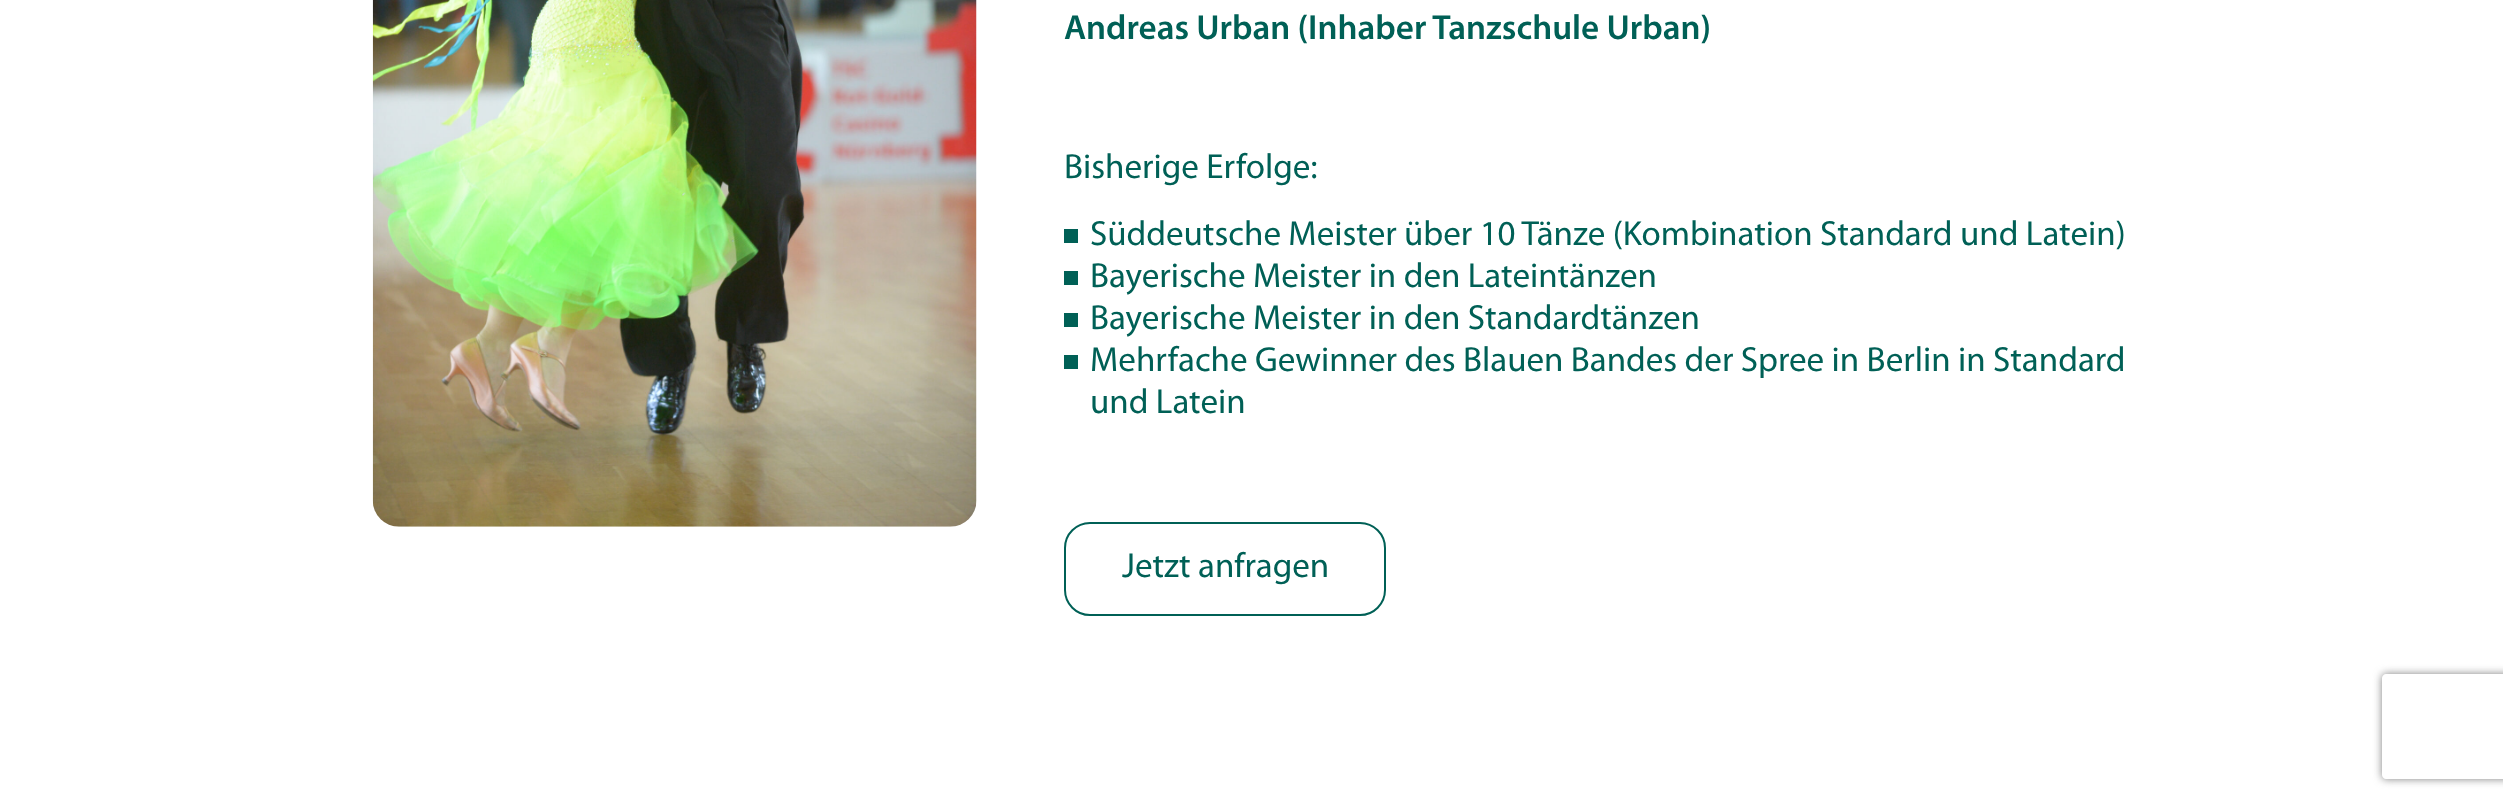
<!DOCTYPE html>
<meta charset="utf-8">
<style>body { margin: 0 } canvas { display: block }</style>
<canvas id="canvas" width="2503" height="803"></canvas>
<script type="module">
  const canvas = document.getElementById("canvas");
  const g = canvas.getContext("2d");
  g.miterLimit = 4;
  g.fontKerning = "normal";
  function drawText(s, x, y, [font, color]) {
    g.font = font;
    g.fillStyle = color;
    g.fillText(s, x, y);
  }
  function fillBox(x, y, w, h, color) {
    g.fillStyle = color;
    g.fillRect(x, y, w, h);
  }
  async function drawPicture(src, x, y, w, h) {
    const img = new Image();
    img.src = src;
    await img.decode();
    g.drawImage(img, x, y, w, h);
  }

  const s1 = ["600 35px Myriad", "#006056"];
  const s2 = ["35px Myriad", "#006056"];

  fillBox(0, 0, 2503, 803, "#FFFFFF");
  await drawPicture("pic1.png", 372, 0, 605, 527);
  drawText("Andreas Urban (Inhaber Tanzschule Urban)", 1064, 39, s1);
  drawText("Bisherige Erfolge:", 1064, 178, s2);
  fillBox(1064, 229, 14, 14, "#006056");
  drawText("Süddeutsche Meister über 10 Tänze (Kombination Standard und Latein)", 1090, 245, s2);
  fillBox(1064, 271, 14, 14, "#006056");
  drawText("Bayerische Meister in den Lateintänzen", 1090, 287, s2);
  fillBox(1064, 313, 14, 14, "#006056");
  drawText("Bayerische Meister in den Standardtänzen", 1090, 329, s2);
  fillBox(1064, 355, 14, 14, "#006056");
  drawText("Mehrfache Gewinner des Blauen Bandes der Spree in Berlin in Standard", 1090, 371, s2);
  drawText("und Latein", 1090, 413, s2);
  g.beginPath();
  g.roundRect(1065, 523, 320, 92, 25);
  g.strokeStyle = "#006056";
  g.lineWidth = 2;
  g.stroke();
  drawText("Jetzt anfragen", 1122, 577, s2);
  g.save();
  g.beginPath();
  g.moveTo(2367, 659);
  g.lineTo(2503, 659);
  g.lineTo(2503, 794);
  g.lineTo(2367, 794);
  g.closePath();
  g.moveTo(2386, 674);
  g.lineTo(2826, 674);
  g.bezierCurveTo(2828, 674, 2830, 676, 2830, 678);
  g.lineTo(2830, 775);
  g.bezierCurveTo(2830, 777, 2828, 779, 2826, 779);
  g.lineTo(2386, 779);
  g.bezierCurveTo(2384, 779, 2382, 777, 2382, 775);
  g.lineTo(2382, 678);
  g.bezierCurveTo(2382, 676, 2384, 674, 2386, 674);
  g.closePath();
  g.clip("evenodd");
  g.fillStyle = "#808080";
  g.filter = "blur(4.5px)";
  g.beginPath();
  g.roundRect(2382, 674, 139, 105, 4);
  g.fill();
  g.filter = "none";
  g.restore();
</script>
